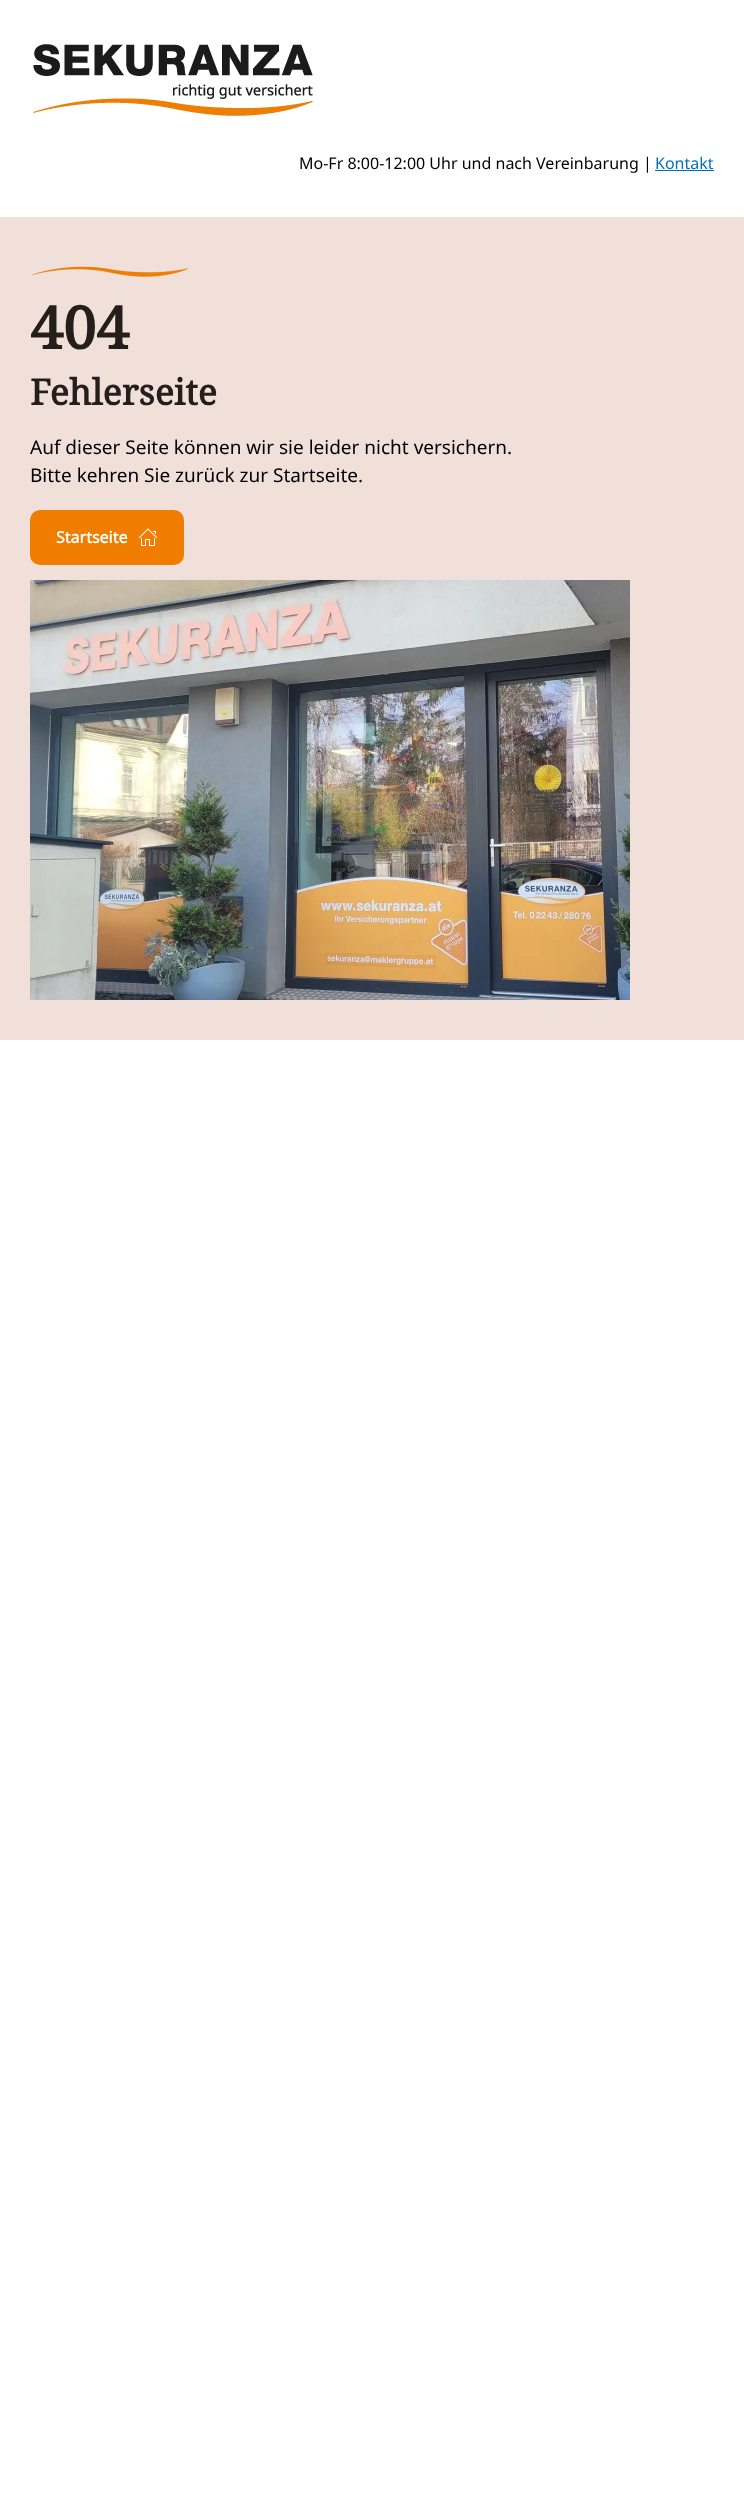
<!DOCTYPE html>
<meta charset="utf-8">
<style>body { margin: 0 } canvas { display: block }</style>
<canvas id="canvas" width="744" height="2514"></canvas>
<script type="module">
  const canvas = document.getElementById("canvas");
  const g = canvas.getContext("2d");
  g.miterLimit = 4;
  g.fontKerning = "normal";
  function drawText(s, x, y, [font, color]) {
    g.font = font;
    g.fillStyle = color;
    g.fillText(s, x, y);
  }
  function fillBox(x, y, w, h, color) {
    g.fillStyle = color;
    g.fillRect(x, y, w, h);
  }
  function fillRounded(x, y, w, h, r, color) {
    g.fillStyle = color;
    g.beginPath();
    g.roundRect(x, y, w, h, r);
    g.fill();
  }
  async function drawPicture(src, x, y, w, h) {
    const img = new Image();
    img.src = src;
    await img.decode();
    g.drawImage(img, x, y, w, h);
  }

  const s1 = ["16px Noto Sans", "#000000"];
  const s2 = ["16px Noto Sans", "#0071BC"];
  const s3 = ["bold 59px Noto Serif", "#251F1B"];
  const s4 = ["bold 35.75px Noto Serif", "#251F1B"];
  const s5 = ["19px Noto Sans", "#000000"];
  const s6 = ["bold 16px Noto Sans", "#FFFFFF"];

  fillBox(0, 0, 744, 2514, "#FFFFFF");
  await drawPicture("pic1.png", 33, 44, 280, 72);
  drawText("Mo-Fr 8:00-12:00 Uhr und nach Vereinbarung |", 299, 169, s1);
  drawText("Kontakt", 655, 169, s2);
  fillBox(655, 170, 59, 1, "#0071BC");
  fillBox(0, 217, 744, 823, "#F1DFD9");
  await drawPicture("pic2.png", 32, 266, 157, 11);
  drawText("404", 30, 349, s3);
  drawText("Fehlerseite", 30, 405, s4);
  drawText("Auf dieser Seite können wir sie leider nicht versichern.", 30, 454, s5);
  drawText("Bitte kehren Sie zurück zur Startseite.", 30, 482, s5);
  fillRounded(30, 510, 154, 55, 10, "#F07D00");
  drawText("Startseite", 56, 543, s6);
  await drawPicture("pic3.png", 138, 528, 20, 18);
  await drawPicture("pic4.png", 30, 580, 600, 420);
</script>
